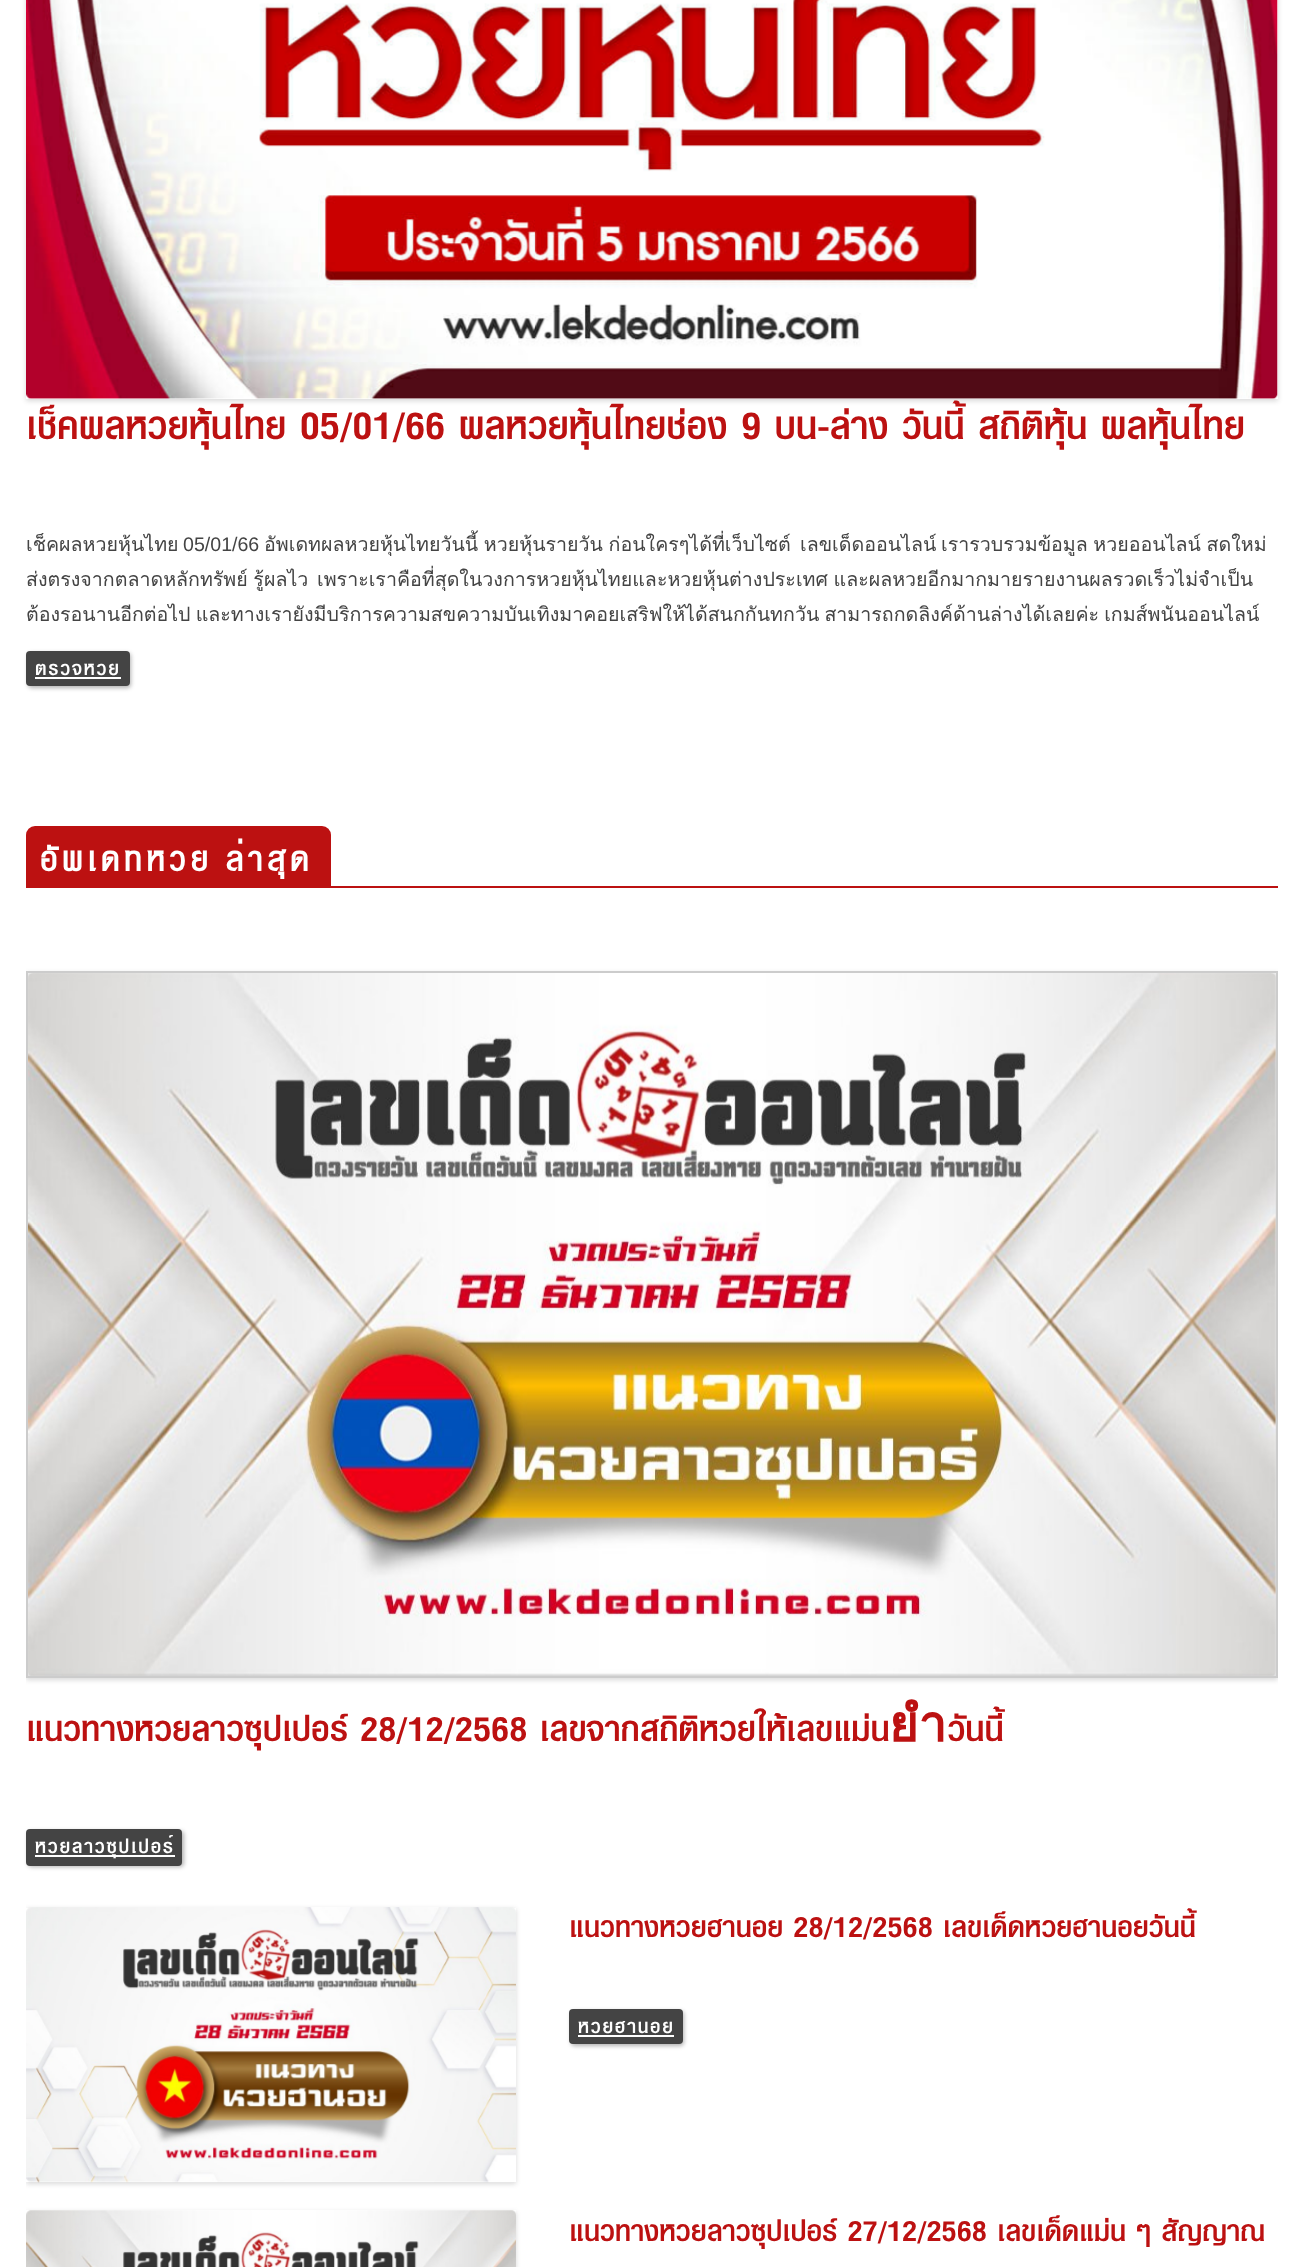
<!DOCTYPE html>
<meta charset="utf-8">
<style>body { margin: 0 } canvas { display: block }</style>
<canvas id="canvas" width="1303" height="2267"></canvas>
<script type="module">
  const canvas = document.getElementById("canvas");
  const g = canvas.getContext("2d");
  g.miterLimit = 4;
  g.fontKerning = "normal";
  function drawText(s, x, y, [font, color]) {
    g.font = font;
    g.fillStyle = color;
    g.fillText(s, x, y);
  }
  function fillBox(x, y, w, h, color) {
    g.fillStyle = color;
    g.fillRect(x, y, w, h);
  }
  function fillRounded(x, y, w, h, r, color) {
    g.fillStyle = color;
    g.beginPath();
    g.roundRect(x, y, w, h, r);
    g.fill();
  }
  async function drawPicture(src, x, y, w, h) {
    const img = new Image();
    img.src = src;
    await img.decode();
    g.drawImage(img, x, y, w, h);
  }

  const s1 = ["bold 56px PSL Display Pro", "#BC1111"];
  const s2 = ["19.6px Loma", "#444444"];
  const s3 = ["19.6px Liberation Sans", "#444444"];
  const s4 = ["bold 28px PSL Display Pro", "#FFFFFF"];
  const s5 = ["bold 47.5px 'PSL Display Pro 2'", "#FFFFFF"];
  const s6 = ["bold 50.4px PSL Display Pro", "#BC1111"];
  const s7 = ["bold 42px PSL Display Pro", "#BC1111"];

  fillBox(0, 0, 1303, 2267, "#FFFFFF");
  g.save();
  g.beginPath();
  g.moveTo(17, 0);
  g.lineTo(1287, 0);
  g.lineTo(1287, 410);
  g.lineTo(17, 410);
  g.closePath();
  g.moveTo(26, -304);
  g.lineTo(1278, -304);
  g.lineTo(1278, 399);
  g.lineTo(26, 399);
  g.closePath();
  g.clip("evenodd");
  g.fillStyle = "rgba(0, 0, 0, 0.15)";
  g.filter = "blur(2.5px)";
  g.beginPath();
  g.rect(26, -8, 1252, 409);
  g.fill();
  g.filter = "none";
  g.restore();
  await drawPicture("pic1.png", 26, 0, 1252, 399);
  g.save();
  g.beginPath();
  g.rect(26, 399, 1220, 102);
  g.clip();
  drawText("เช็คผลหวยหุ้นไทย 05/01/66 ผลหวยหุ้นไทยช่อง 9 บน-ล่าง วันนี้ สถิติหุ้น ผลหุ้นไทย", 26, 439, s1);
  g.restore();
  g.save();
  g.beginPath();
  g.rect(26, 527, 1252, 94);
  g.clip();
  drawText("เช็คผลหวยหุ้นไทย", 26, 551, s2);
  g.restore();
  drawText("05/01/66", 183, 551, s3);
  g.wordSpacing = "-1px";
  drawText("อัพเดทผลหวยหุ้นไทยวันนี้ หวยหุ้นรายวัน ก่อนใครๆได้ที่เว็บไซต์", 264, 551, s2);
  g.wordSpacing = "0px";
  drawText("เลขเด็ดออนไลน์", 800, 551, s2);
  g.wordSpacing = "-1px";
  drawText("เรารวบรวมข้อมูล หวยออนไลน์ สดใหม่", 941, 551, s2);
  g.save();
  g.beginPath();
  g.rect(26, 527, 1252, 94);
  g.clip();
  drawText("ส่งตรงจากตลาดหลักทรัพย์ รู้ผลไว", 26, 586, s2);
  g.restore();
  drawText("เพราะเราคือที่สุดในวงการหวยหุ้นไทยและหวยหุ้นต่างประเทศ และผลหวยอีกมากมายรายงานผลรวดเร็วไม่จำเป็น", 317, 586, s2);
  g.save();
  g.beginPath();
  g.rect(26, 527, 1252, 94);
  g.clip();
  g.wordSpacing = "-1.5px";
  drawText("ต้องรอนานอีกต่อไป และทางเรายังมีบริการความสุขความบันเทิงมาคอยเสริฟให้ได้สนุกกันทุกวัน สามารถกดลิงค์ด้านล่างได้เลยค่ะ เกมส์พนันออนไลน์", 26, 621, s2);
  g.restore();
  g.fillStyle = "rgba(0, 0, 0, 0.3)";
  g.filter = "blur(2px)";
  g.beginPath();
  g.roundRect(28, 653, 103, 35, 4);
  g.fill();
  g.filter = "none";
  fillRounded(26, 651, 104, 35, 4, "#444444");
  g.letterSpacing = "1.75px";
  g.wordSpacing = "0px";
  drawText("ตรวจหวย", 35, 675, s4);
  fillBox(35, 677, 86, 2, "#FFFFFF");
  fillBox(26, 886, 1252, 2, "#BC1111");
  g.beginPath();
  g.roundRect(26, 826, 305, 60, [9, 9, 0, 0]);
  g.fill();
  g.letterSpacing = "5.6px";
  g.wordSpacing = "-3px";
  drawText("อัพเดทหวย ล่าสุด", 40, 871, s5);
  g.save();
  g.beginPath();
  g.rect(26, 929, 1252, 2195);
  g.clip();
  g.fillStyle = "rgba(0, 0, 0, 0.15)";
  g.filter = "blur(2.5px)";
  g.beginPath();
  g.rect(26, 973, 1252, 707);
  g.fill();
  g.filter = "none";
  g.restore();
  g.strokeStyle = "#CCCCCC";
  g.lineWidth = 2;
  g.strokeRect(27, 972, 1250, 705);
  await drawPicture("pic2.png", 28, 973, 1248, 703);
  g.letterSpacing = "0px";
  g.wordSpacing = "0px";
  drawText("แนวทางหวยลาวซุปเปอร์ 28/12/2568 เลขจากสถิติหวยให้เลขแม่นยำวันนี้", 26, 1741, s6);
  g.fillStyle = "rgba(0, 0, 0, 0.3)";
  g.filter = "blur(2px)";
  g.beginPath();
  g.roundRect(28, 1831, 156, 36, 4);
  g.fill();
  g.filter = "none";
  fillRounded(26, 1829, 156, 37, 4, "#444444");
  fillBox(35, 1855, 140, 2, "#FFFFFF");
  g.letterSpacing = "1.75px";
  drawText("หวยลาวซุปเปอร์", 35, 1853, s4);
  g.save();
  g.beginPath();
  g.rect(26, 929, 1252, 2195);
  g.clip();
  g.beginPath();
  g.moveTo(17, 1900);
  g.lineTo(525, 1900);
  g.lineTo(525, 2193);
  g.lineTo(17, 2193);
  g.closePath();
  g.moveTo(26, 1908);
  g.lineTo(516, 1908);
  g.lineTo(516, 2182);
  g.lineTo(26, 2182);
  g.closePath();
  g.clip("evenodd");
  g.fillStyle = "rgba(0, 0, 0, 0.15)";
  g.filter = "blur(2.5px)";
  g.beginPath();
  g.rect(26, 1909, 490, 275);
  g.fill();
  g.filter = "none";
  g.restore();
  await drawPicture("pic3.png", 26, 1907, 490, 276);
  g.letterSpacing = "0px";
  drawText("แนวทางหวยฮานอย 28/12/2568 เลขเด็ดหวยฮานอยวันนี้", 569, 1937, s7);
  g.fillStyle = "rgba(0, 0, 0, 0.3)";
  g.filter = "blur(2px)";
  g.beginPath();
  g.roundRect(571, 2011, 113, 35, 4);
  g.fill();
  g.filter = "none";
  fillRounded(569, 2009, 114, 35, 4, "#444444");
  g.letterSpacing = "1.75px";
  drawText("หวยฮานอย", 578, 2033, s4);
  fillBox(578, 2035, 96, 2, "#FFFFFF");
  g.save();
  g.beginPath();
  g.rect(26, 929, 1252, 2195);
  g.clip();
  g.beginPath();
  g.moveTo(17, 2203);
  g.lineTo(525, 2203);
  g.lineTo(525, 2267);
  g.lineTo(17, 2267);
  g.closePath();
  g.moveTo(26, 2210);
  g.lineTo(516, 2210);
  g.lineTo(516, 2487);
  g.lineTo(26, 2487);
  g.closePath();
  g.clip("evenodd");
  g.fillStyle = "rgba(0, 0, 0, 0.15)";
  g.filter = "blur(2.5px)";
  g.beginPath();
  g.rect(26, 2212, 490, 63);
  g.fill();
  g.filter = "none";
  g.restore();
  await drawPicture("pic4.png", 26, 2210, 490, 57);
  g.letterSpacing = "0px";
  drawText("แนวทางหวยลาวซุปเปอร์ 27/12/2568 เลขเด็ดแม่น ๆ สัญญาณ", 569, 2241, s7);
</script>
